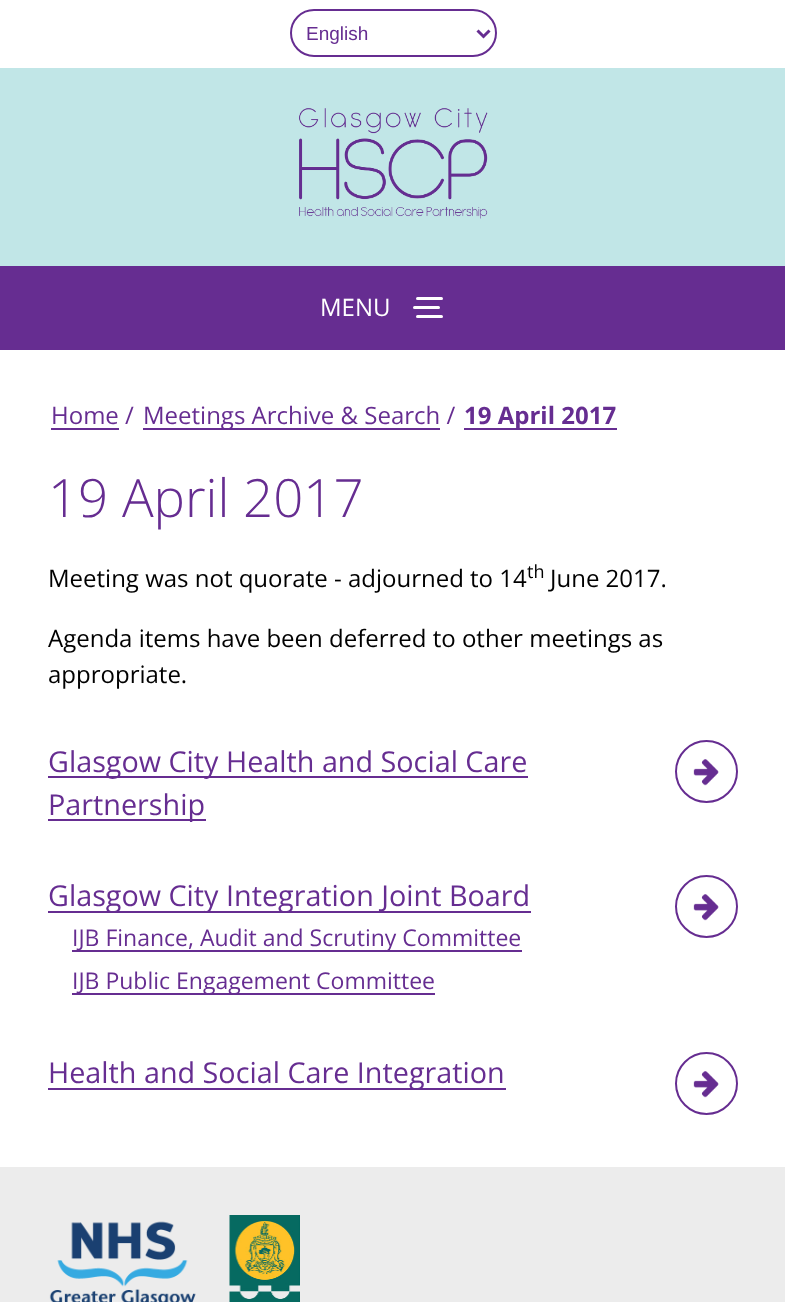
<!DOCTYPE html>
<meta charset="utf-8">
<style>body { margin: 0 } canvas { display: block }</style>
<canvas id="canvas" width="785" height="1302"></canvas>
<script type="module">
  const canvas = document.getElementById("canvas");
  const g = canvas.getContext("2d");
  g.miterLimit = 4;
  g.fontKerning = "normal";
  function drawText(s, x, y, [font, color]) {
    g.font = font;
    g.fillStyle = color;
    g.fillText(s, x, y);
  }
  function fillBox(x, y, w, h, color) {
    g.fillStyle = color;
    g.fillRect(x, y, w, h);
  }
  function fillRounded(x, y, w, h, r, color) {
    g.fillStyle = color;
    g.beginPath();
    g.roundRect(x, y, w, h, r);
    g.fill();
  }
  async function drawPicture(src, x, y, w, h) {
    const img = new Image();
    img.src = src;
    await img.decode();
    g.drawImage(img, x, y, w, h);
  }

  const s1 = ["19px Liberation Sans", "#662D91"];
  const s2 = ["24px Open Sans", "#FFFFFF"];
  const s3 = ["24px Open Sans", "#662D91"];
  const s4 = ["bold 24px Open Sans", "#662D91"];
  const s5 = ["300 52.75px Open Sans", "#662D91"];
  const s6 = ["24px Open Sans", "#000000"];
  const s7 = ["18px Open Sans", "#000000"];
  const s8 = ["28.75px Open Sans", "#662D91"];
  const s9 = ["23px Open Sans", "#662D91"];

  fillBox(0, 0, 785, 1302, "#FFFFFF");
  g.beginPath();
  g.roundRect(291, 10, 205, 46, 23);
  g.strokeStyle = "#662D91";
  g.lineWidth = 2;
  g.stroke();
  g.beginPath();
  g.moveTo(477.5, 30.5);
  g.lineTo(483.5, 36.5);
  g.lineTo(489.5, 30.5);
  g.lineWidth = 3;
  g.stroke();
  drawText("English", 306, 40, s1);
  fillBox(0, 68, 785, 198, "#C1E6E7");
  await drawPicture("pic1.png", 299, 108, 189, 111);
  fillBox(0, 266, 785, 84, "#662D91");
  drawText("MENU", 320, 316, s2);
  fillRounded(416, 297, 27, 3, 1.5, "#FFFFFF");
  fillRounded(413, 306, 27, 3, 1.5, "#FFFFFF");
  fillRounded(416, 315, 27, 3, 1.5, "#FFFFFF");
  drawText("Home /", 51, 424, s3);
  fillBox(51, 428, 68, 2, "#662D91");
  fillBox(143, 428, 297, 2, "#662D91");
  drawText("Meetings Archive & Search /", 143, 424, s3);
  fillBox(464, 428, 153, 2, "#662D91");
  drawText("19 April 2017", 464, 424, s4);
  drawText("19 April 2017", 48, 517, s5);
  drawText("Meeting was not quorate - adjourned to 14", 48, 587, s6);
  drawText("th", 527, 578, s7);
  drawText("June 2017.", 550, 587, s6);
  drawText("Agenda items have been deferred to other meetings as", 48, 647, s6);
  drawText("appropriate.", 48, 683, s6);
  fillBox(48, 776, 480, 2, "#662D91");
  drawText("Glasgow City Health and Social Care", 48, 772, s8);
  await drawPicture("pic2.png", 693, 759, 26, 27);
  g.beginPath();
  g.arc(706.5, 771.5, 30.5, 0, Math.PI * 2);
  g.lineWidth = 2;
  g.stroke();
  fillBox(48, 819, 158, 2, "#662D91");
  drawText("Partnership", 48, 815, s8);
  fillBox(48, 911, 483, 2, "#662D91");
  drawText("Glasgow City Integration Joint Board", 48, 906, s8);
  await drawPicture("pic2.png", 693, 894, 26, 27);
  g.beginPath();
  g.arc(706.5, 906.5, 30.5, 0, Math.PI * 2);
  g.stroke();
  fillBox(72, 950, 450, 2, "#662D91");
  drawText("IJB Finance, Audit and Scrutiny Committee", 72, 946, s9);
  fillBox(72, 993, 363, 2, "#662D91");
  drawText("IJB Public Engagement Committee", 72, 989, s9);
  fillBox(48, 1088, 458, 2, "#662D91");
  drawText("Health and Social Care Integration", 48, 1083, s8);
  await drawPicture("pic2.png", 693, 1071, 26, 27);
  g.beginPath();
  g.arc(706.5, 1083.5, 30.5, 0, Math.PI * 2);
  g.stroke();
  fillBox(0, 1167, 785, 135, "#ECECEC");
  await drawPicture("pic3.png", 49, 1221, 147, 81);
  await drawPicture("pic4.png", 229, 1215, 71, 87);
</script>
